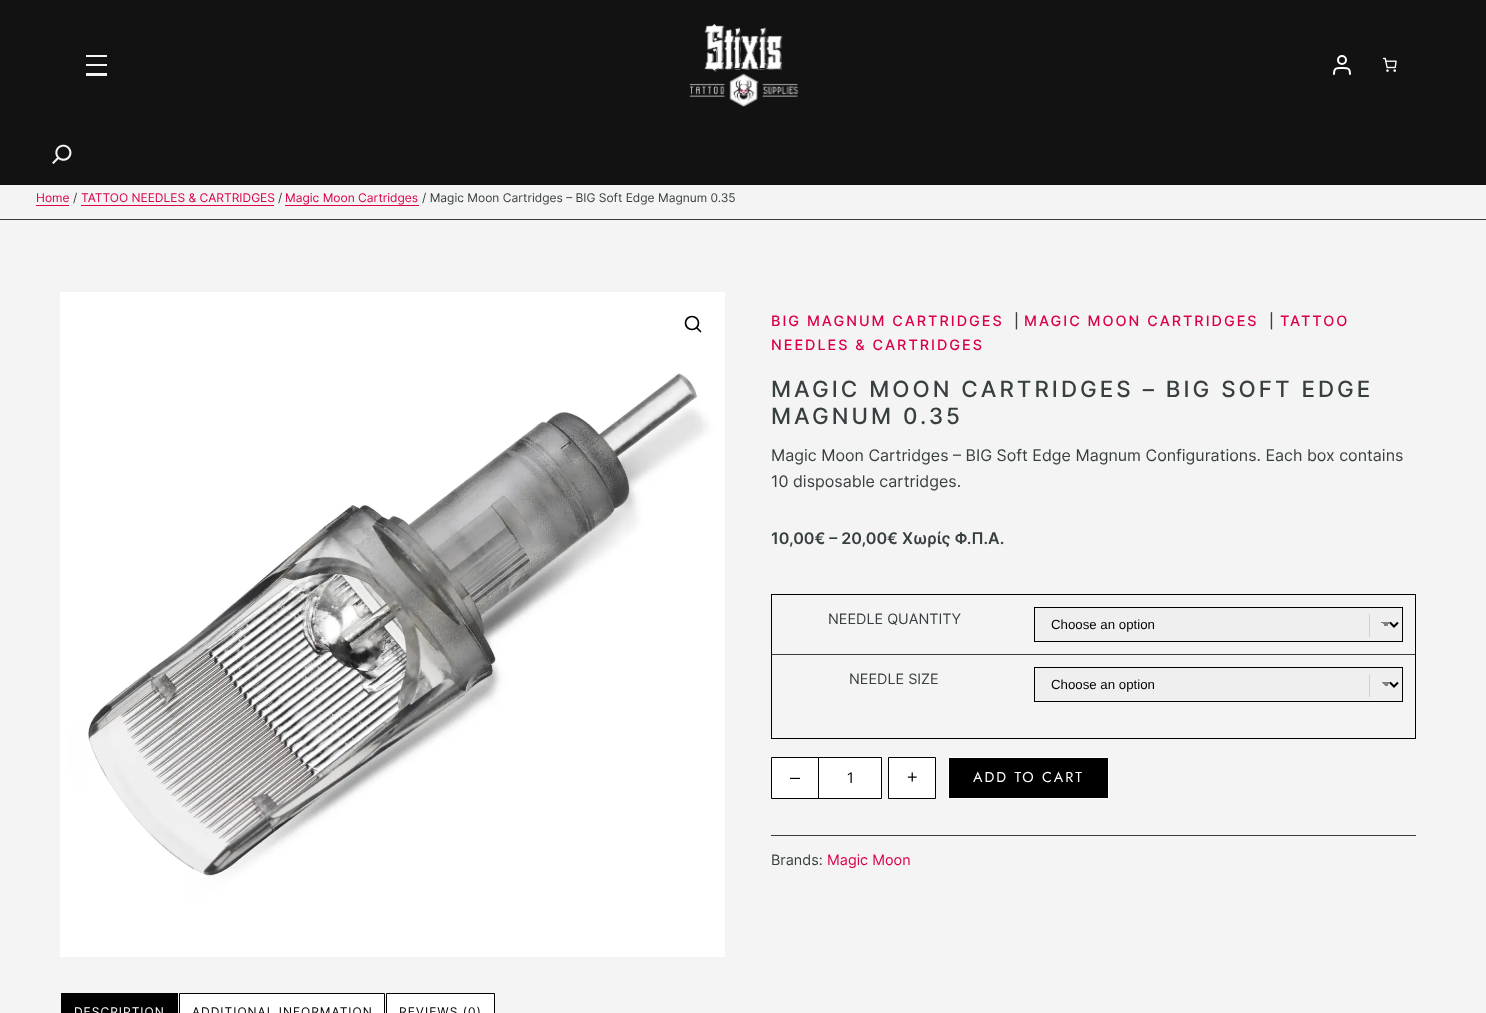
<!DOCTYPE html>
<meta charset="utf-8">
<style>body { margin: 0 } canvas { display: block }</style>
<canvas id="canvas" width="1486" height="1013"></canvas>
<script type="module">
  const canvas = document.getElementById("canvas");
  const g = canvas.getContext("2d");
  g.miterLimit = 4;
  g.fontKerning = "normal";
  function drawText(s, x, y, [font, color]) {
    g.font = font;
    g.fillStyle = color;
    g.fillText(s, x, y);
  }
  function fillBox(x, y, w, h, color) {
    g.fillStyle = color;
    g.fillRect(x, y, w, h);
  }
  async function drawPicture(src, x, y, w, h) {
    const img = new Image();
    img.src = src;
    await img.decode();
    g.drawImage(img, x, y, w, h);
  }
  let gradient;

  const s1 = ["12px Inter", "#DB0049"];
  const s2 = ["12px Inter", "#383F40"];
  const s3 = ["500 14.4px Inter", "#DB0049"];
  const s4 = ["500 14.4px Inter", "#383F40"];
  const s5 = ["500 22.4px Inter", "#383F40"];
  const s6 = ["16px Inter", "#383F40"];
  const s7 = ["600 16px Inter", "#383F40"];
  const s8 = ["14.4px Inter", "#383F40"];
  const s9 = ["13.25px Liberation Sans", "#000000"];
  const s10 = ["18px Liberation Sans", "#000000"];
  const s11 = ["14.4px Inter", "#000000"];
  const s12 = ["14.4px Jost", "#FFFFFF"];
  const s13 = ["14.4px Inter", "#DB0049"];
  const s14 = ["12px Inter", "#FFFFFF"];
  const s15 = ["12px Inter", "#000000"];

  fillBox(0, 0, 1486, 1013, "#F4F4F4");
  fillBox(0, 0, 1486, 185, "#121212");
  await drawPicture("pic1.png", 52, 144, 20, 20);
  fillBox(86, 55, 21, 2, "#F4F4F4");
  fillBox(86, 64, 21, 2, "#F4F4F4");
  fillBox(86, 73, 21, 3, "#F4F4F4");
  await drawPicture("pic2.png", 689, 23, 110, 84);
  g.beginPath();
  g.moveTo(1350, 74);
  g.bezierCurveTo(1350, 67.5, 1347.5, 68, 1342, 68);
  g.bezierCurveTo(1336.5, 68, 1334, 67.5, 1334, 74);
  g.strokeStyle = "#FFFFFF";
  g.lineWidth = 2;
  g.lineCap = "round";
  g.lineJoin = "round";
  g.stroke();
  g.beginPath();
  g.arc(1342, 60, 4, 0, Math.PI * 2);
  g.stroke();
  await drawPicture("pic3.png", 1382, 57, 15, 15);
  fillBox(0, 219, 1486, 1, "#383F40");
  drawText("Home", 36, 202, s1);
  fillBox(36, 205, 33, 1, "#DB0049");
  drawText("/", 73, 202, s2);
  drawText("TATTOO NEEDLES & CARTRIDGES", 81, 202, s1);
  fillBox(81, 205, 193, 1, "#DB0049");
  drawText("/", 278, 202, s2);
  drawText("Magic Moon Cartridges", 285, 202, s1);
  fillBox(285, 205, 134, 1, "#DB0049");
  drawText("/ Magic Moon Cartridges – BIG Soft Edge Magnum 0.35", 422, 202, s2);
  await drawPicture("pic4.png", 60, 292, 665, 665);
  g.beginPath();
  g.arc(692, 323, 6.5, 0, Math.PI * 2);
  g.strokeStyle = "#000000";
  g.lineWidth = 1.7;
  g.stroke();
  g.beginPath();
  g.moveTo(700.5, 331.5);
  g.lineTo(697, 328);
  g.stroke();
  g.letterSpacing = "2px";
  drawText("BIG MAGNUM CARTRIDGES", 771, 326, s3);
  drawText("|", 1014, 326, s4);
  drawText("MAGIC MOON CARTRIDGES", 1024, 326, s3);
  drawText("|", 1269, 326, s4);
  drawText("TATTOO", 1280, 326, s3);
  drawText("NEEDLES & CARTRIDGES", 771, 350, s3);
  g.letterSpacing = "3px";
  drawText("MAGIC MOON CARTRIDGES – BIG SOFT EDGE", 771, 397, s5);
  drawText("MAGNUM 0.35", 771, 424, s5);
  g.letterSpacing = "0px";
  drawText("Magic Moon Cartridges – BIG Soft Edge Magnum Configurations. Each box contains", 771, 461, s6);
  drawText("10 disposable cartridges.", 771, 487, s6);
  drawText("10,00€ – 20,00€ Χωρίς Φ.Π.Α.", 771, 544, s7);
  g.lineWidth = 1;
  g.lineJoin = "miter";
  g.strokeRect(771.5, 594.5, 644, 144);
  fillBox(772, 654, 643, 1, "#383F40");
  drawText("NEEDLE QUANTITY", 828, 624, s8);
  fillBox(1035, 608, 367, 33, "#EFEFEF");
  fillBox(1369, 614, 1, 23, "#D2D2D2");
  gradient = g.createLinearGradient(1386, 622, 1391, 627);
  gradient.addColorStop(0.5, "#808080");
  gradient.addColorStop(0.5, "#EFEFEF");
  g.fillStyle = gradient;
  g.fillRect(1386, 622, 5, 4);
  gradient = g.createLinearGradient(1381, 627, 1386, 622);
  gradient.addColorStop(0.5, "#EFEFEF");
  gradient.addColorStop(0.5, "#808080");
  g.fillStyle = gradient;
  g.fillRect(1381, 622, 5, 4);
  g.strokeRect(1034.5, 607.5, 368, 34);
  g.beginPath();
  g.moveTo(1390, 622.5);
  g.lineTo(1394, 626.5);
  g.lineTo(1398, 622.5);
  g.lineWidth = 2;
  g.lineCap = "butt";
  g.stroke();
  drawText("Choose an option", 1051, 629, s9);
  drawText("NEEDLE SIZE", 849, 684, s8);
  fillBox(1035, 668, 367, 33, "#EFEFEF");
  fillBox(1369, 674, 1, 23, "#D2D2D2");
  gradient = g.createLinearGradient(1386, 682, 1391, 687);
  gradient.addColorStop(0.5, "#808080");
  gradient.addColorStop(0.5, "#EFEFEF");
  g.fillStyle = gradient;
  g.fillRect(1386, 682, 5, 4);
  gradient = g.createLinearGradient(1381, 687, 1386, 682);
  gradient.addColorStop(0.5, "#EFEFEF");
  gradient.addColorStop(0.5, "#808080");
  g.fillStyle = gradient;
  g.fillRect(1381, 682, 5, 4);
  g.lineWidth = 1;
  g.strokeRect(1034.5, 667.5, 368, 34);
  g.beginPath();
  g.moveTo(1390, 682.5);
  g.lineTo(1394, 686.5);
  g.lineTo(1398, 682.5);
  g.lineWidth = 2;
  g.stroke();
  drawText("Choose an option", 1051, 689, s9);
  g.fillStyle = "#FFFFFF";
  g.beginPath();
  g.rect(818.5, 757.5, 63, 41);
  g.fill();
  g.lineWidth = 1;
  g.stroke();
  g.beginPath();
  g.rect(771.5, 757.5, 47, 41);
  g.fill();
  g.stroke();
  drawText("–", 790, 783, s10);
  drawText("1", 847, 783, s11);
  g.fillStyle = "#FFFFFF";
  g.beginPath();
  g.rect(888.5, 757.5, 47, 41);
  g.fill();
  g.stroke();
  drawText("+", 907, 783, s10);
  g.beginPath();
  g.rect(948.5, 757.5, 160, 41);
  g.fill();
  g.strokeStyle = "#FFFFFF";
  g.stroke();
  g.letterSpacing = "2px";
  drawText("ADD TO CART", 973, 782, s12);
  fillBox(771, 835, 645, 1, "#383F40");
  g.letterSpacing = "0px";
  drawText("Brands:", 771, 865, s8);
  drawText("Magic Moon", 827, 865, s13);
  fillBox(61, 993, 117, 20, "#000000");
  g.letterSpacing = "1px";
  drawText("DESCRIPTION", 74, 1016, s14);
  g.beginPath();
  g.rect(179.5, 993.5, 205, 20);
  g.fill();
  g.strokeStyle = "#000000";
  g.stroke();
  drawText("ADDITIONAL INFORMATION", 192, 1016, s15);
  g.fillStyle = "#FFFFFF";
  g.beginPath();
  g.rect(386.5, 993.5, 108, 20);
  g.fill();
  g.stroke();
  drawText("REVIEWS (0)", 399, 1016, s15);
</script>
